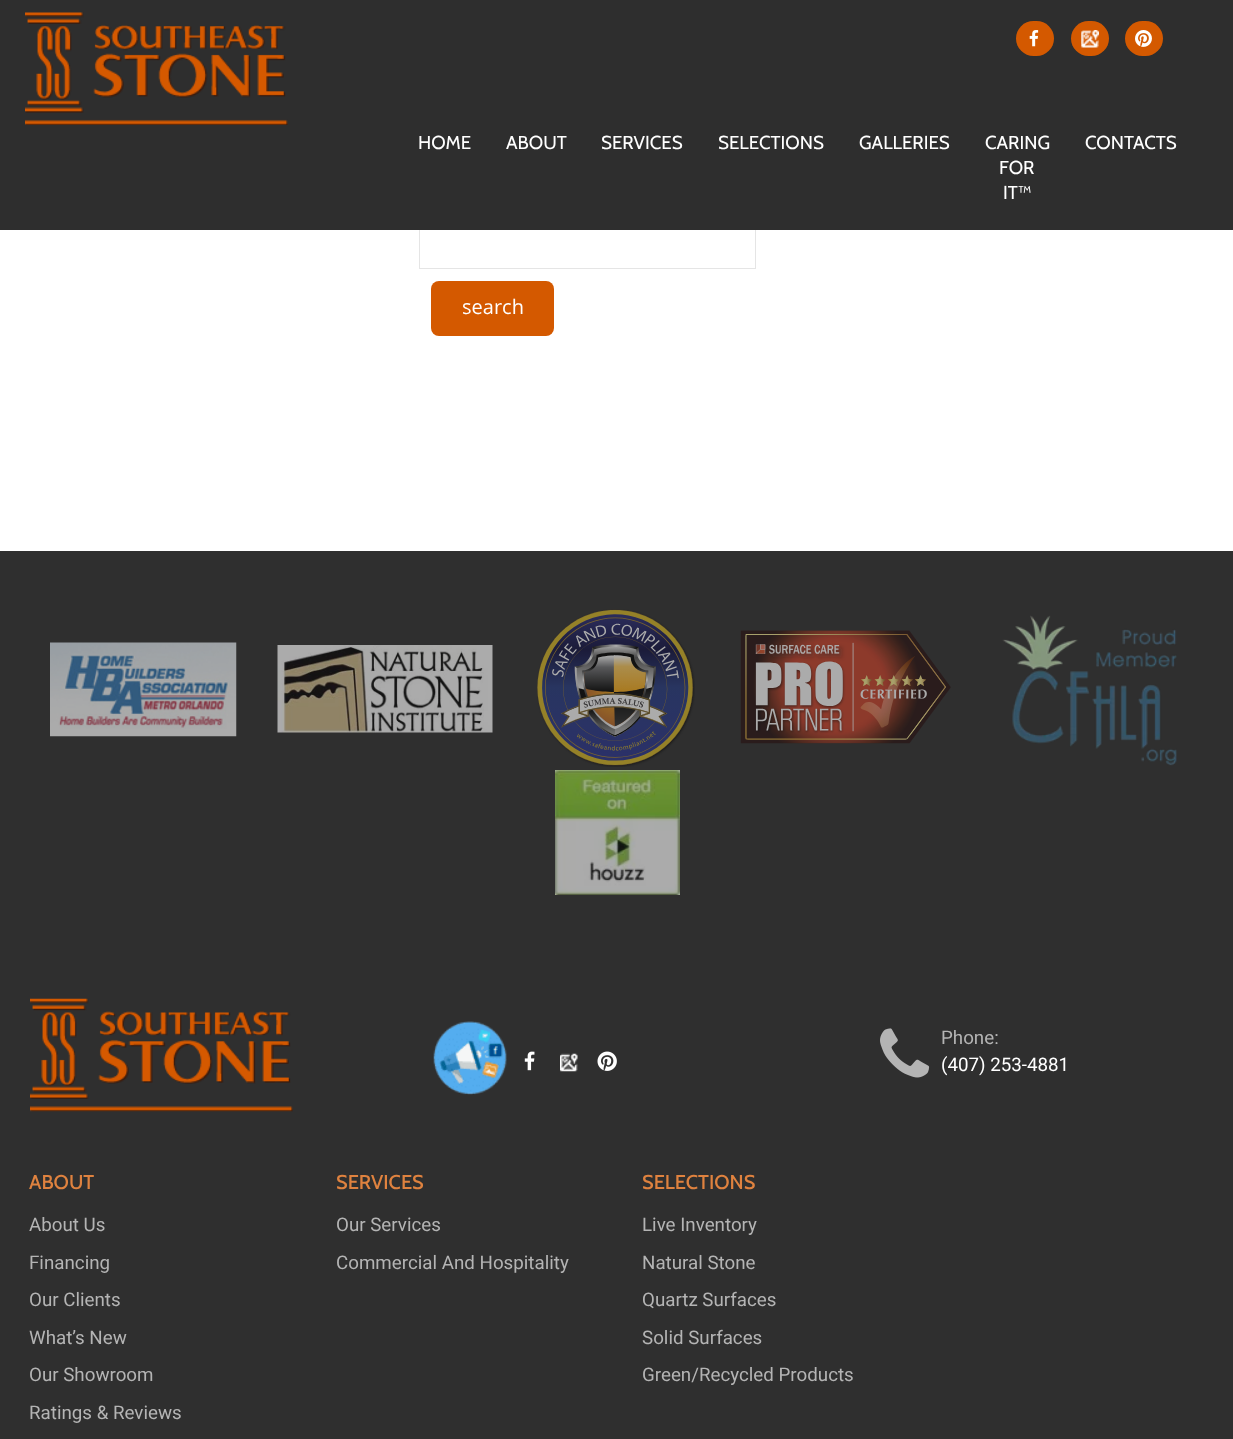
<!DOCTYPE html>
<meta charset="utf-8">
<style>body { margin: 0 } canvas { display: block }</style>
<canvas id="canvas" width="1233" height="1439"></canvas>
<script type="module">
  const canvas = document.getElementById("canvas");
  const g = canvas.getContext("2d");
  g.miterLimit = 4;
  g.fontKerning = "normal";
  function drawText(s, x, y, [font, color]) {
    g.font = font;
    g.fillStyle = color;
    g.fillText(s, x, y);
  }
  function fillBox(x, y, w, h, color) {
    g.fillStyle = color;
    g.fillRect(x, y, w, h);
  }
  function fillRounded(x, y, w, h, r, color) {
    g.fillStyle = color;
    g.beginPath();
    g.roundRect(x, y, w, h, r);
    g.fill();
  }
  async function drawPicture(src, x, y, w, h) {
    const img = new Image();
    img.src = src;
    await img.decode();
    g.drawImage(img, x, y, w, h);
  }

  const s1 = ["18.75px Cabin", "#FFFFFF"];
  const s2 = ["20px Open Sans", "#FFFFFF"];
  const s3 = ["18.75px Roboto", "#B4B4B4"];
  const s4 = ["18.75px Roboto", "#FFFFFF"];
  const s5 = ["500 20px Cabin", "#DF823F"];

  fillBox(0, 0, 1233, 1439, "#FFFFFF");
  g.strokeStyle = "#E5E5E5";
  g.strokeRect(419.5, 210.5, 336, 58);
  fillBox(0, 0, 1233, 230, "#2E2E2E");
  await drawPicture("pic1.png", 25, 12, 263, 113);
  fillRounded(1016, 21, 38, 35, 17.5, "#D45900");
  await drawPicture("pic2.png", 1029, 30, 10, 17);
  fillRounded(1071, 21, 38, 35, 17.5, "#D45900");
  await drawPicture("pic3.png", 1081, 30, 18, 18);
  fillRounded(1125, 21, 38, 35, 17.5, "#D45900");
  await drawPicture("pic4.png", 1135, 30, 17, 17);
  drawText("HOME", 418, 149, s1);
  drawText("ABOUT", 506, 149, s1);
  drawText("SERVICES", 601, 149, s1);
  drawText("SELECTIONS", 718, 149, s1);
  drawText("GALLERIES", 859, 149, s1);
  drawText("CARING", 985, 149, s1);
  drawText("FOR", 999, 174, s1);
  drawText("IT™", 1003, 199, s1);
  drawText("CONTACTS", 1085, 149, s1);
  fillRounded(431, 281, 123, 55, 8, "#D45900");
  drawText("search", 462, 314, s2);
  fillBox(0, 551, 1233, 888, "#2F2F2F");
  await drawPicture("pic5.png", 50, 642, 187, 95);
  await drawPicture("pic6.png", 277, 645, 216, 88);
  await drawPicture("pic7.png", 537, 609, 158, 158);
  await drawPicture("pic8.png", 740, 630, 211, 114);
  await drawPicture("pic9.png", 1002, 615, 175, 151);
  await drawPicture("pic10.png", 555, 770, 125, 125);
  await drawPicture("pic11.png", 30, 998, 263, 114);
  await drawPicture("pic12.png", 433, 1021, 74, 74);
  await drawPicture("pic13.png", 524, 1051, 11, 20);
  await drawPicture("pic14.png", 560, 1053, 18, 19);
  await drawPicture("pic15.png", 597, 1051, 20, 20);
  await drawPicture("pic16.png", 880, 1028, 50, 50);
  drawText("Phone:", 941, 1044, s3);
  drawText("(407) 253-4881", 941, 1071, s4);
  drawText("ABOUT", 29, 1189, s5);
  drawText("About Us", 29, 1231, s3);
  drawText("Financing", 29, 1269, s3);
  drawText("Our Clients", 29, 1306, s3);
  drawText("What’s New", 29, 1344, s3);
  drawText("Our Showroom", 29, 1381, s3);
  drawText("Ratings & Reviews", 29, 1419, s3);
  drawText("SERVICES", 336, 1189, s5);
  drawText("Our Services", 336, 1231, s3);
  drawText("Commercial And Hospitality", 336, 1269, s3);
  drawText("SELECTIONS", 642, 1189, s5);
  drawText("Live Inventory", 642, 1231, s3);
  drawText("Natural Stone", 642, 1269, s3);
  drawText("Quartz Surfaces", 642, 1306, s3);
  drawText("Solid Surfaces", 642, 1344, s3);
  drawText("Green/Recycled Products", 642, 1381, s3);
</script>
